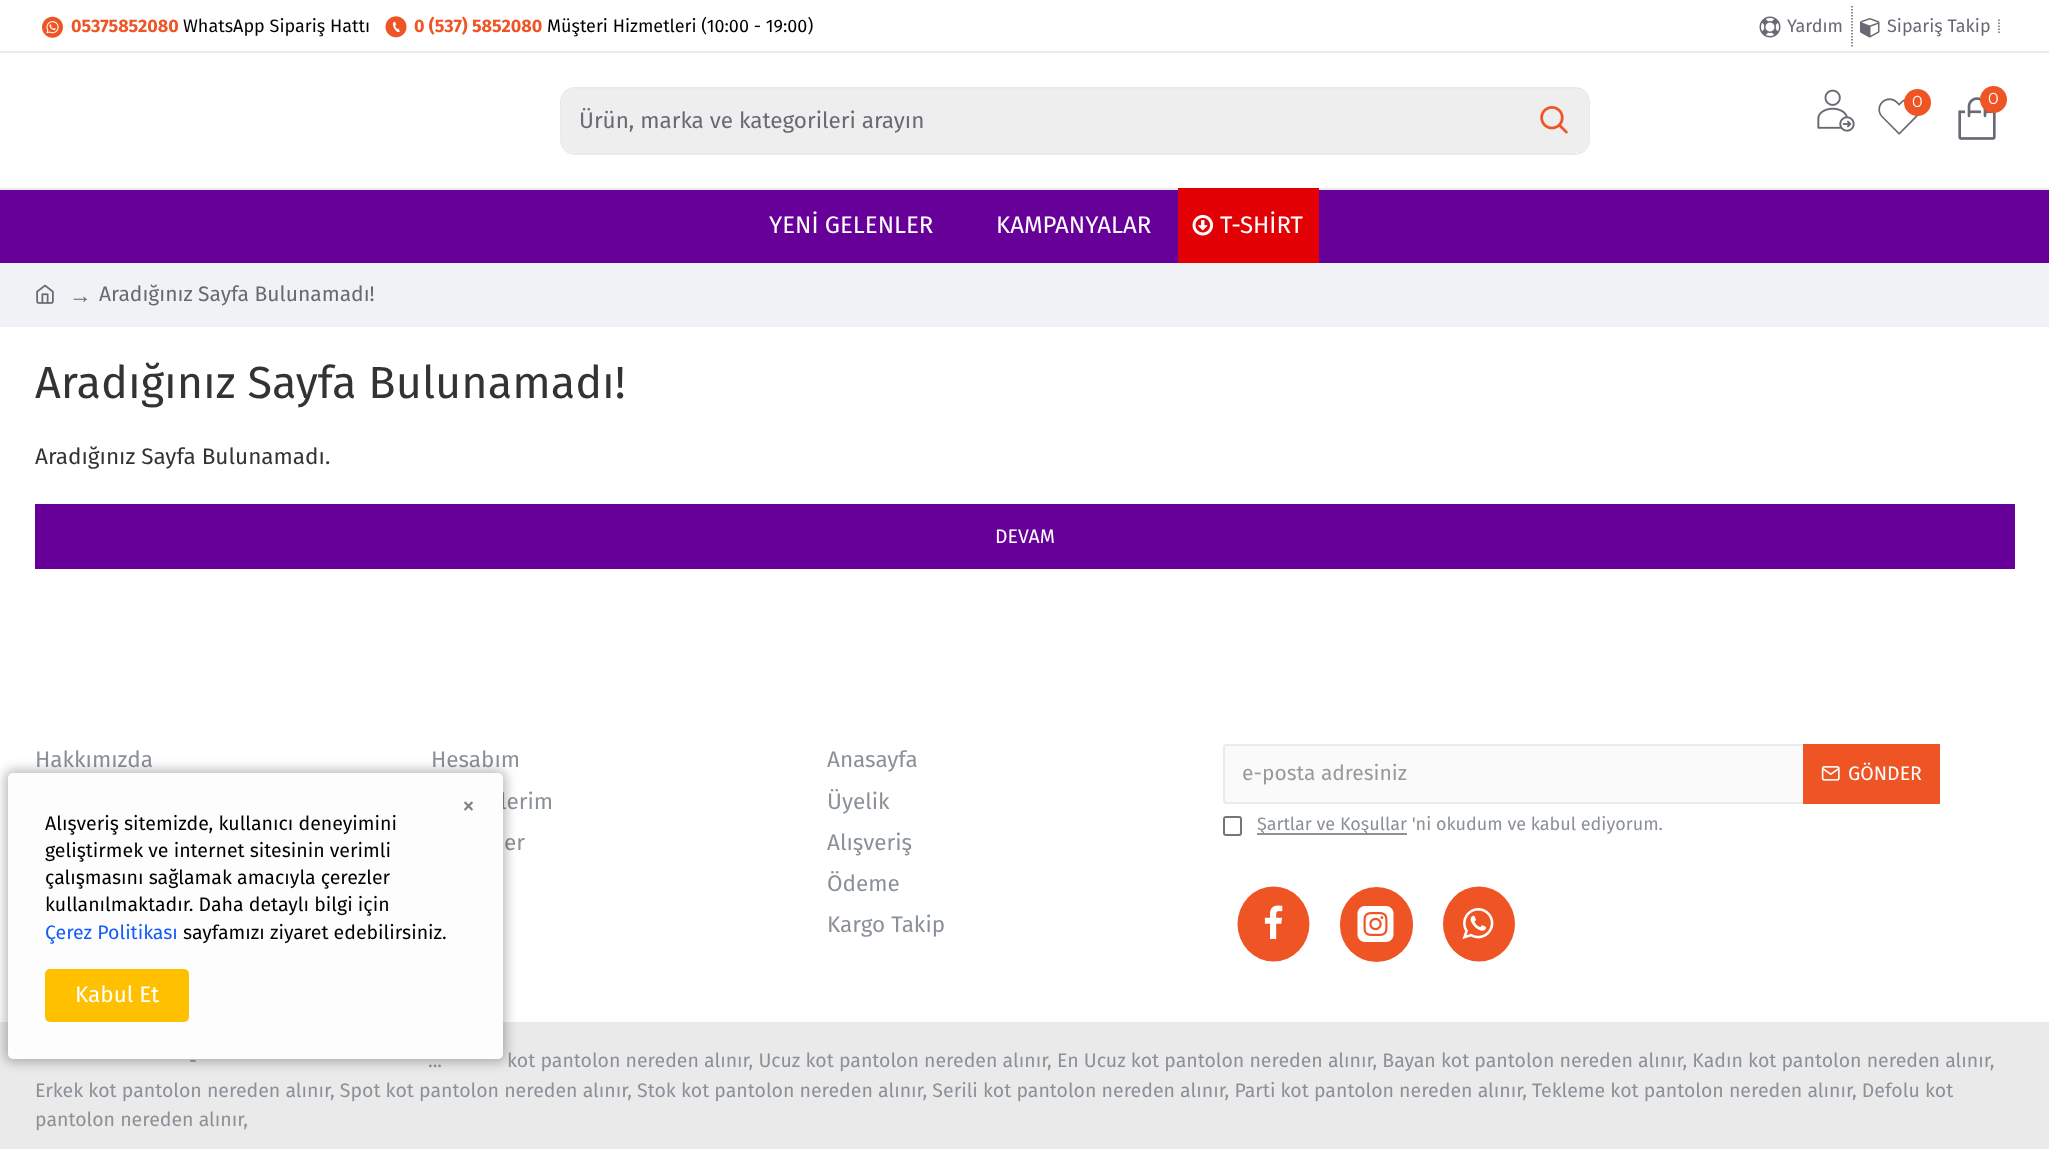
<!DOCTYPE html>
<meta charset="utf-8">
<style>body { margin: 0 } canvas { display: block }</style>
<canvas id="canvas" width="2049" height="1149"></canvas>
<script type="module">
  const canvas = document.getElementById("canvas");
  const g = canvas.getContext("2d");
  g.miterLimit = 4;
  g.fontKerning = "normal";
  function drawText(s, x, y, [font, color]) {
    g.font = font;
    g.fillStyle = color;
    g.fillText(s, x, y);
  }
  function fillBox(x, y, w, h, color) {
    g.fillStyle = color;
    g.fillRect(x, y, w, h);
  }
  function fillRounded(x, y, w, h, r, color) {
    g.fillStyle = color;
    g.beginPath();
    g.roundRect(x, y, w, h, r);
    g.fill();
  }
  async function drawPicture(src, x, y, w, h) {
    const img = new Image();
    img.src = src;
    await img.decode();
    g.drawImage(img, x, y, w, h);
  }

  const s1 = ["bold 18px Fira Sans", "#EF5425"];
  const s2 = ["18px Fira Sans", "#000000"];
  const s3 = ["18px Fira Sans", "#696973"];
  const s4 = ["16px Montserrat", "#FFFFFF"];
  const s5 = ["22.5px Fira Sans", "#696973"];
  const s6 = ["24px Fira Sans", "#FFFFFF"];
  const s7 = ["22.5px Liberation Serif", "#696973"];
  const s8 = ["21px Fira Sans", "#696973"];
  const s9 = ["45px Fira Sans", "#333333"];
  const s10 = ["22.5px Fira Sans", "#333333"];
  const s11 = ["19.5px Fira Sans", "#FFFFFF"];
  const s12 = ["22.5px Fira Sans", "#8B9198"];
  const s13 = ["21px Fira Sans", "#999999"];
  const s14 = ["18px Fira Sans", "#8B9198"];
  const s15 = ["19.5px Fira Sans", "#8B9198"];
  const s16 = ["26px Fira Sans", "#7F7F7F"];
  const s17 = ["19.5px Fira Sans", "#000000"];
  const s18 = ["19.5px Fira Sans", "#115CFA"];
  const s19 = ["22.5px Fira Sans", "#FFFFFF"];

  fillBox(0, 0, 2049, 1149, "#FFFFFF");
  await drawPicture("pic1.png", 42, 16, 21, 22);
  drawText("05375852080", 71, 32, s1);
  drawText("WhatsApp Sipariş Hattı", 183, 32, s2);
  await drawPicture("pic2.png", 385, 16, 22, 22);
  drawText("0 (537) 5852080", 414, 32, s1);
  drawText("Müşteri Hizmetleri (10:00 - 19:00)", 547, 32, s2);
  await drawPicture("pic3.png", 1759, 16, 22, 22);
  drawText("Yardım", 1787, 32, s3);
  g.beginPath();
  g.moveTo(1852, 6);
  g.lineTo(1852, 48);
  g.strokeStyle = "#696973";
  g.lineWidth = 1.5;
  g.setLineDash([1.5, 1.5]);
  g.stroke();
  await drawPicture("pic4.png", 1860, 18, 20, 20);
  drawText("Sipariş Takip", 1887, 32, s3);
  g.beginPath();
  g.moveTo(1999, 19.5);
  g.lineTo(1999, 34.5);
  g.stroke();
  await drawPicture("pic5.png", 1817, 89, 38, 43);
  await drawPicture("pic6.png", 1878, 98, 41, 37);
  g.fillStyle = "#EF5425";
  g.beginPath();
  g.arc(1917.5, 102.5, 13.5, 0, Math.PI * 2);
  g.fill();
  drawText("0", 1912, 107, s4);
  await drawPicture("pic7.png", 1958, 97, 38, 43);
  g.fillStyle = "#EF5425";
  g.beginPath();
  g.arc(1993.5, 99.5, 13.5, 0, Math.PI * 2);
  g.fill();
  drawText("0", 1988, 104, s4);
  g.beginPath();
  g.roundRect(561, 88, 1028, 66, 14);
  g.strokeStyle = "#EAEAEA";
  g.lineWidth = 2;
  g.setLineDash([]);
  g.stroke();
  g.fillStyle = "#EEEEEE";
  g.beginPath();
  g.roundRect(561, 89, 960, 64, [15, 0, 0, 15]);
  g.fill();
  drawText("Ürün, marka ve kategorileri arayın", 579, 128, s5);
  g.fillStyle = "#EEEEEE";
  g.beginPath();
  g.roundRect(1521, 89, 68, 64, [0, 15, 15, 0]);
  g.fill();
  await drawPicture("pic8.png", 1540, 106, 28, 28);
  fillBox(0, 190, 2049, 73, "#660099");
  fillBox(0, 188, 2049, 2, "#EAEAEA");
  drawText("YENİ GELENLER", 769, 233, s6);
  drawText("KAMPANYALAR", 996, 233, s6);
  fillBox(1178, 188, 141, 75, "#E20004");
  await drawPicture("pic9.png", 1192, 214, 22, 22);
  drawText("T-SHİRT", 1220, 233, s6);
  fillBox(0, 51, 2049, 2, "#EAEAEA");
  fillBox(0, 263, 2049, 64, "#F0F2F5");
  await drawPicture("pic10.png", 36, 284, 18, 20);
  drawText("→", 69, 303, s7);
  drawText("Aradığınız Sayfa Bulunamadı!", 99, 301, s8);
  drawText("Aradığınız Sayfa Bulunamadı!", 35, 398, s9);
  drawText("Aradığınız Sayfa Bulunamadı.", 35, 464, s10);
  fillBox(35, 504, 1980, 65, "#660099");
  drawText("DEVAM", 995, 543, s11);
  drawText("Hakkımızda", 35, 767, s12);
  drawText("Hesabım", 431, 767, s12);
  drawText("lerim", 500, 809, s12);
  drawText("er", 504, 850, s12);
  drawText("Anasayfa", 827, 767, s12);
  drawText("Üyelik", 827, 809, s12);
  drawText("Alışveriş", 827, 850, s12);
  drawText("Ödeme", 827, 891, s12);
  drawText("Kargo Takip", 827, 932, s12);
  g.fillStyle = "#FAFAFA";
  g.beginPath();
  g.roundRect(1224, 745, 715, 58, 2);
  g.fill();
  g.stroke();
  drawText("e-posta adresiniz", 1242, 780, s13);
  fillBox(1803, 744, 137, 60, "#EF5425");
  await drawPicture("pic11.png", 1821, 766, 19, 15);
  drawText("GÖNDER", 1848, 780, s11);
  g.beginPath();
  g.roundRect(1224, 817, 17, 18, 2);
  g.strokeStyle = "#767676";
  g.stroke();
  fillBox(1257, 833, 150, 2, "#8B9198");
  drawText("Şartlar ve Koşullar 'ni okudum ve kabul ediyorum.", 1257, 830, s14);
  g.fillStyle = "#EF5425";
  g.beginPath();
  g.ellipse(1273.5, 924, 36, 37.5, 0, 0, Math.PI * 2);
  g.fill();
  await drawPicture("pic12.png", 1264, 905, 19, 34);
  fillRounded(1340, 887, 73, 75, 36.5, "#EF5425");
  await drawPicture("pic13.png", 1357, 906, 37, 36);
  g.beginPath();
  g.ellipse(1479, 924, 36, 37.5, 0, 0, Math.PI * 2);
  g.fill();
  await drawPicture("pic14.png", 1462, 908, 32, 31);
  fillBox(0, 1022, 2049, 127, "#EAEAEA");
  drawText("-", 189, 1067, s15);
  drawText("kot pantolon nereden alınır, Ucuz kot pantolon nereden alınır, En Ucuz kot pantolon nereden alınır, Bayan kot pantolon nereden alınır, Kadın kot pantolon nereden alınır,", 507, 1067, s15);
  drawText("...", 428, 1067, s15);
  drawText("Erkek kot pantolon nereden alınır, Spot kot pantolon nereden alınır, Stok kot pantolon nereden alınır, Serili kot pantolon nereden alınır, Parti kot pantolon nereden alınır, Tekleme kot pantolon nereden alınır, Defolu kot", 35, 1097, s15);
  drawText("pantolon nereden alınır,", 35, 1126, s15);
  g.fillStyle = "rgba(0, 0, 0, 0.28)";
  g.filter = "blur(6px)";
  g.beginPath();
  g.roundRect(5, 770, 501, 292, 8);
  g.fill();
  g.filter = "none";
  fillRounded(8, 773, 495, 286, 5, "#FDFDFD");
  drawText("×", 462, 814, s16);
  drawText("Alışveriş sitemizde, kullanıcı deneyimini", 45, 830, s17);
  drawText("geliştirmek ve internet sitesinin verimli", 45, 857, s17);
  drawText("çalışmasını sağlamak amacıyla çerezler", 45, 884, s17);
  drawText("kullanılmaktadır. Daha detaylı bilgi için", 45, 911, s17);
  drawText("Çerez Politikası", 45, 939, s18);
  drawText("sayfamızı ziyaret edebilirsiniz.", 183, 939, s17);
  fillRounded(45, 969, 144, 53, 5, "#FFC000");
  drawText("Kabul Et", 75, 1002, s19);
</script>
